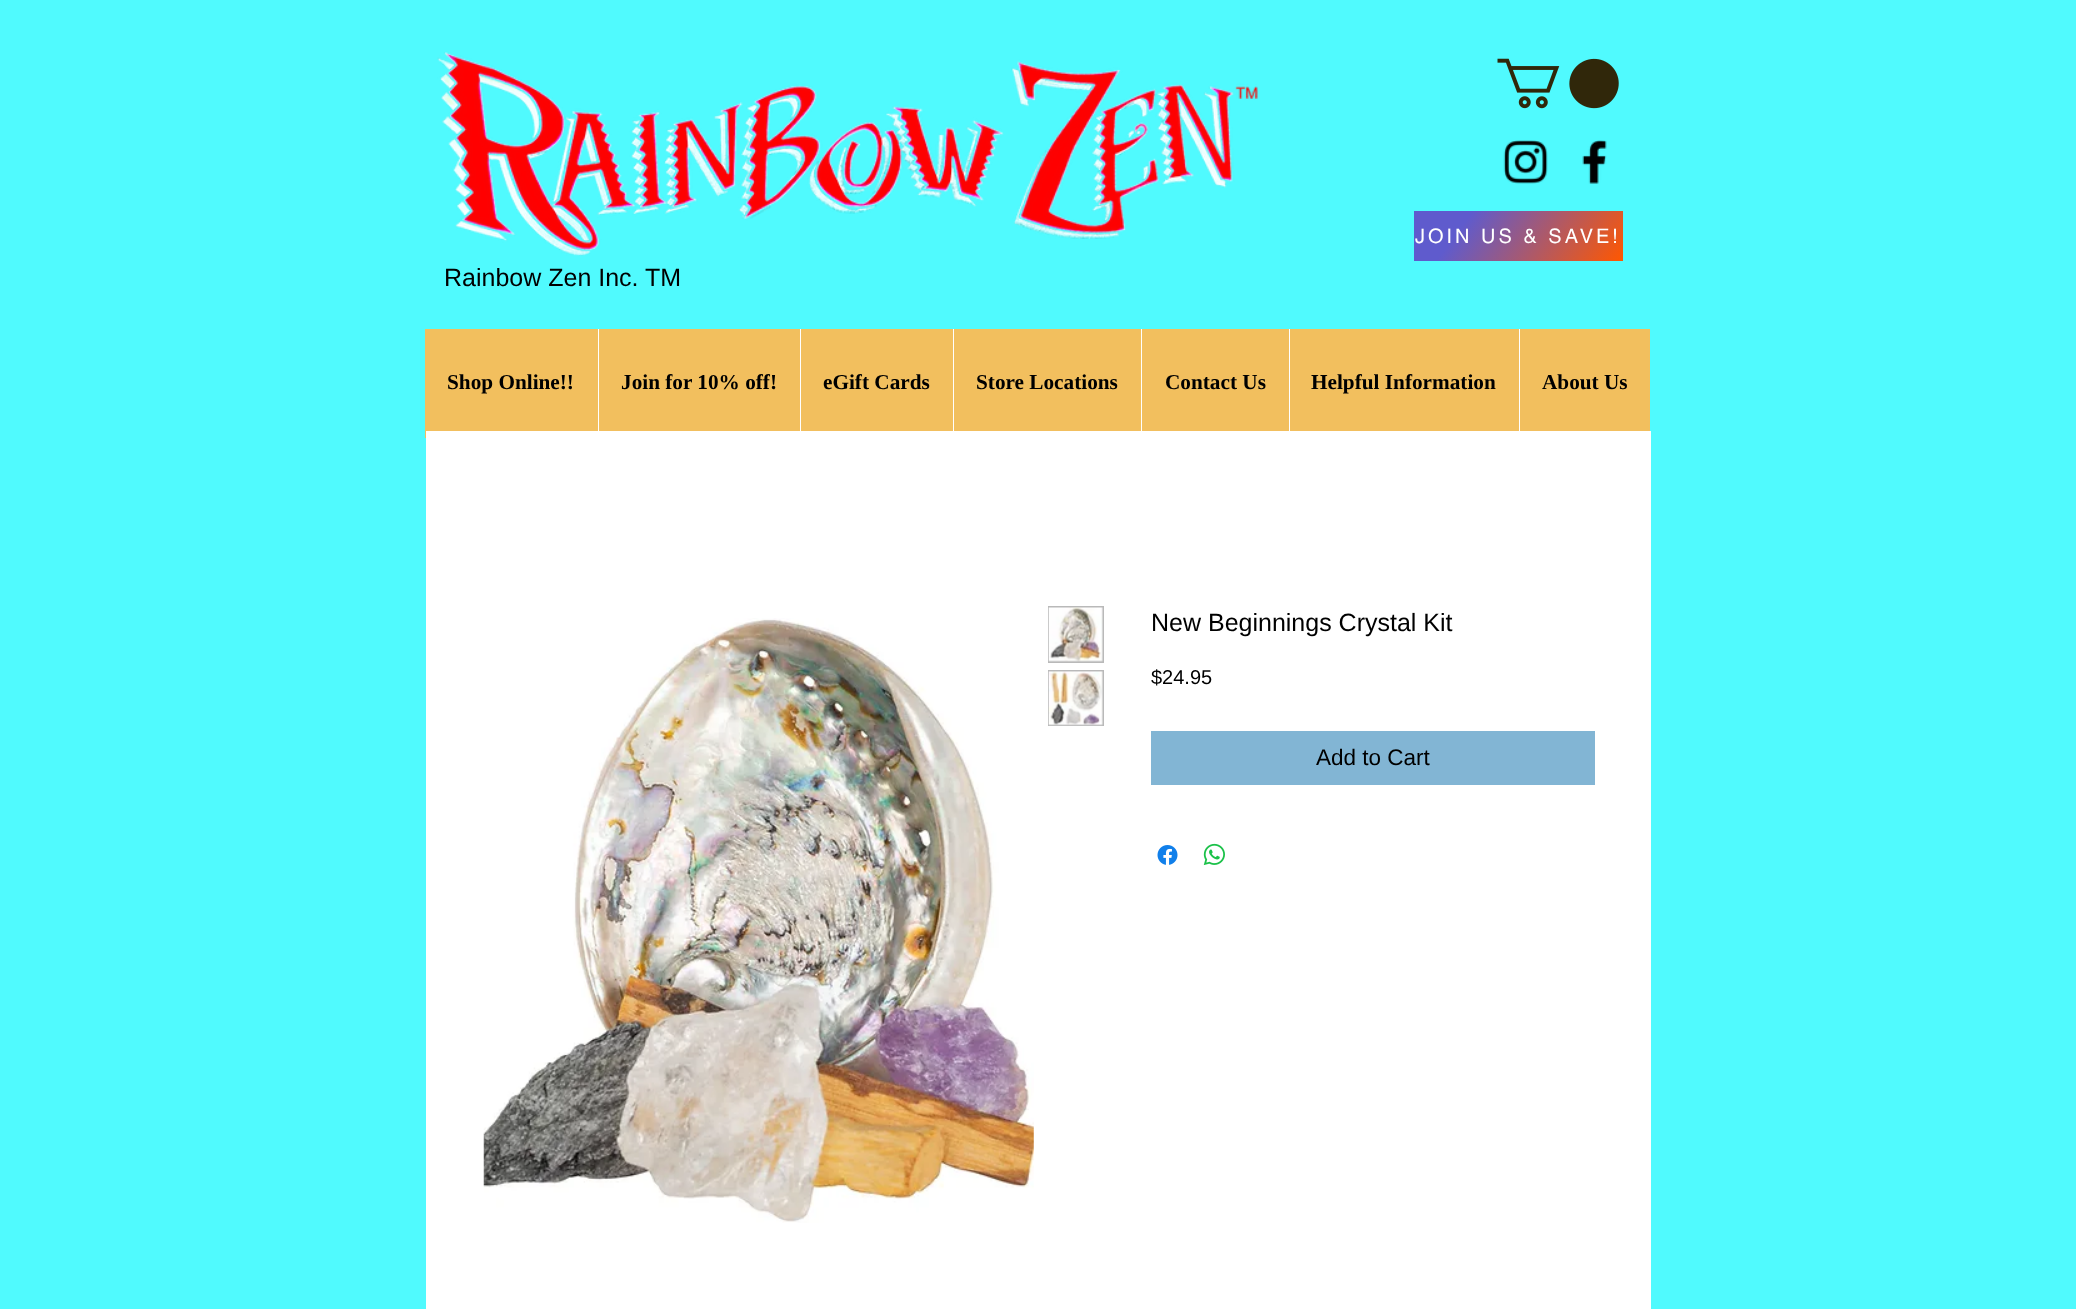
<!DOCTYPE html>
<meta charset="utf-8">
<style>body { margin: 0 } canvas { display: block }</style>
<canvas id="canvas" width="2076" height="1309"></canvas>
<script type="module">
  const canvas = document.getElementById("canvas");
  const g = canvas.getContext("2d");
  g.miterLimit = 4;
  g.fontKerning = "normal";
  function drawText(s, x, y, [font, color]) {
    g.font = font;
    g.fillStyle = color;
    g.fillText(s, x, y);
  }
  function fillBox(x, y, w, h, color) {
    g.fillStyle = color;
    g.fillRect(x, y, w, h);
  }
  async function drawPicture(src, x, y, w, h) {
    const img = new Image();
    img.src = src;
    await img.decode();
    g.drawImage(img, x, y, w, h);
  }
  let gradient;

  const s1 = ["20px helvetica", "#FFFFFF"];
  const s2 = ["25px Liberation Sans", "#000000"];
  const s3 = ["bold 21.25px Liberation Serif", "#000000"];
  const s4 = ["20px Liberation Sans", "#000000"];
  const s5 = ["22.5px Liberation Sans", "#000000"];

  fillBox(0, 0, 2076, 1309, "#50FAFE");
  await drawPicture("pic1.png", 437, 52, 821, 204);
  await drawPicture("pic2.png", 1497, 58, 122, 51);
  await drawPicture("pic3.png", 1503, 140, 45, 44);
  await drawPicture("pic4.png", 1582, 140, 25, 44);
  gradient = g.createLinearGradient(1438, 178, 1598, 295);
  gradient.addColorStop(0.24, "#5F5BCD");
  gradient.addColorStop(1, "#FF5700");
  g.fillStyle = gradient;
  g.fillRect(1414, 211, 209, 50);
  g.letterSpacing = "3px";
  drawText("JOIN US & SAVE!", 1415, 243, s1);
  g.letterSpacing = "0px";
  drawText("Rainbow Zen Inc. TM", 444, 286, s2);
  fillBox(425, 329, 1225, 109, "#F2BF5E");
  drawText("Shop Online!!", 447, 389, s3);
  fillBox(598, 329, 1, 109, "#FFFFFF");
  drawText("Join for 10% off!", 621, 389, s3);
  fillBox(800, 329, 1, 109, "#FFFFFF");
  drawText("eGift Cards", 823, 389, s3);
  fillBox(953, 329, 1, 109, "#FFFFFF");
  drawText("Store Locations", 976, 389, s3);
  fillBox(1141, 329, 1, 109, "#FFFFFF");
  drawText("Contact Us", 1165, 389, s3);
  fillBox(1289, 329, 1, 109, "#FFFFFF");
  drawText("Helpful Information", 1311, 389, s3);
  fillBox(1519, 329, 1, 109, "#FFFFFF");
  drawText("About Us", 1542, 389, s3);
  fillBox(426, 431, 1225, 878, "#FFFFFF");
  await drawPicture("pic5.png", 483, 618, 551, 605);
  fillBox(1048, 606, 56, 57, "#B9B9B9");
  await drawPicture("pic6.png", 1048, 607, 55, 55);
  fillBox(1048, 670, 56, 56, "#B9B9B9");
  await drawPicture("pic7.png", 1048, 671, 55, 55);
  drawText("New Beginnings Crystal Kit", 1151, 631, s2);
  drawText("$24.95", 1151, 684, s4);
  fillBox(1151, 731, 444, 54, "#82B5D4");
  drawText("Add to Cart", 1316, 765, s5);
  await drawPicture("pic8.png", 1157, 845, 21, 20);
  await drawPicture("pic9.png", 1203, 843, 22, 22);
</script>
